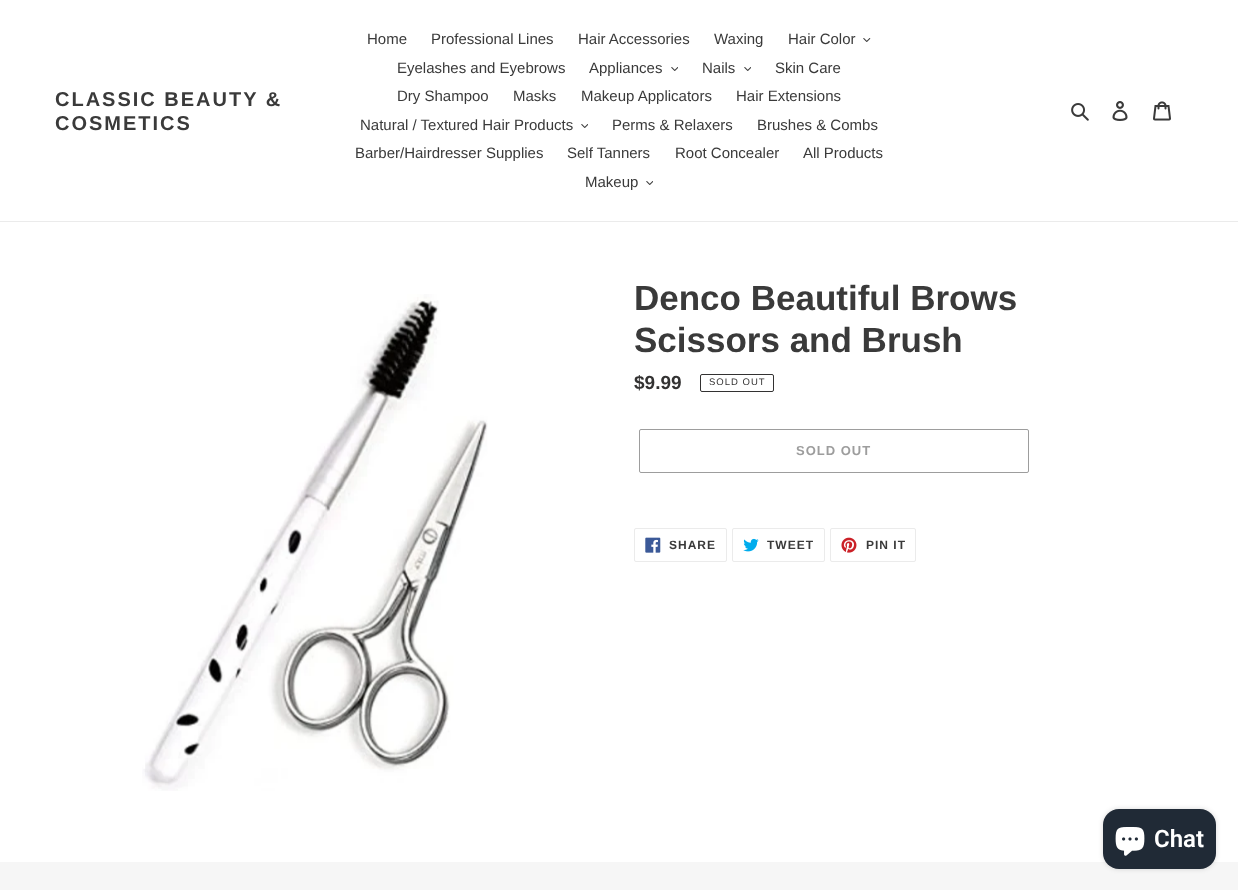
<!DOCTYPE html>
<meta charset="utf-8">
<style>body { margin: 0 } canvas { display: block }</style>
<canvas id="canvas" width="1238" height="890"></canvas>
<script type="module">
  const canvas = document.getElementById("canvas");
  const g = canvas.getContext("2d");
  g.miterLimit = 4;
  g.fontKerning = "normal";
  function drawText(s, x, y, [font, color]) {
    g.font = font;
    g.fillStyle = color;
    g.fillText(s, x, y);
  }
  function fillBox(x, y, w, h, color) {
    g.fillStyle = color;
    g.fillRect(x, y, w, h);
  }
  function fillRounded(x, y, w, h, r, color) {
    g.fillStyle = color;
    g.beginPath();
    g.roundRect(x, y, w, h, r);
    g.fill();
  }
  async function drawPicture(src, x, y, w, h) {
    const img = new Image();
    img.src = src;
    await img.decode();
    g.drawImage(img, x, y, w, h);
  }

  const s1 = ["bold 20px Liberation Sans", "#3A3A3A"];
  const s2 = ["15px Liberation Sans", "#3A3A3A"];
  const s3 = ["bold 35px Liberation Sans", "#3A3A3A"];
  const s4 = ["bold 19px Liberation Sans", "#333232"];
  const s5 = ["9.5px Liberation Sans", "#333232"];
  const s6 = ["bold 13px Liberation Sans", "#9D9D9D"];
  const s7 = ["bold 12px Liberation Sans", "#3A3A3A"];
  const s8 = ["600 24px Roboto", "#FFFFFF"];

  fillBox(0, 0, 1238, 890, "#FFFFFF");
  fillBox(0, 221, 1238, 1, "#EBEBEB");
  g.letterSpacing = "2px";
  drawText("CLASSIC BEAUTY &", 55, 106, s1);
  drawText("COSMETICS", 55, 130, s1);
  g.letterSpacing = "0px";
  drawText("Home", 367, 44, s2);
  drawText("Professional Lines", 431, 44, s2);
  drawText("Hair Accessories", 578, 44, s2);
  drawText("Waxing", 714, 44, s2);
  drawText("Hair Color", 788, 44, s2);
  await drawPicture("pic1.png", 863, 38, 8, 4);
  drawText("Eyelashes and Eyebrows", 397, 73, s2);
  drawText("Appliances", 589, 73, s2);
  await drawPicture("pic2.png", 671, 67, 7, 4);
  drawText("Nails", 702, 73, s2);
  await drawPicture("pic2.png", 744, 67, 7, 4);
  drawText("Skin Care", 775, 73, s2);
  drawText("Dry Shampoo", 397, 101, s2);
  drawText("Masks", 513, 101, s2);
  drawText("Makeup Applicators", 581, 101, s2);
  drawText("Hair Extensions", 736, 101, s2);
  drawText("Natural / Textured Hair Products", 360, 130, s2);
  await drawPicture("pic2.png", 581, 124, 7, 4);
  drawText("Perms & Relaxers", 612, 130, s2);
  drawText("Brushes & Combs", 757, 130, s2);
  drawText("Barber/Hairdresser Supplies", 355, 158, s2);
  drawText("Self Tanners", 567, 158, s2);
  drawText("Root Concealer", 675, 158, s2);
  drawText("All Products", 803, 158, s2);
  drawText("Makeup", 585, 187, s2);
  await drawPicture("pic2.png", 646, 181, 7, 4);
  await drawPicture("pic3.png", 1071, 103, 18, 18);
  await drawPicture("pic4.png", 1112, 101, 16, 20);
  await drawPicture("pic5.png", 1153, 101, 18, 20);
  await drawPicture("pic6.png", 142, 294, 346, 497);
  drawText("Denco Beautiful Brows", 634, 310, s3);
  drawText("Scissors and Brush", 634, 352, s3);
  drawText("$9.99", 634, 389, s4);
  g.beginPath();
  g.roundRect(700.5, 374.5, 73, 17, 1.5);
  g.strokeStyle = "#333232";
  g.stroke();
  g.letterSpacing = "1px";
  drawText("SOLD OUT", 709, 385, s5);
  g.beginPath();
  g.roundRect(639.5, 429.5, 389, 43, 1.5);
  g.strokeStyle = "#9D9D9D";
  g.stroke();
  drawText("SOLD OUT", 796, 455, s6);
  g.beginPath();
  g.roundRect(634.5, 528.5, 92, 33, 1.5);
  g.strokeStyle = "#EBEBEB";
  g.stroke();
  await drawPicture("pic7.png", 645, 537, 16, 16);
  drawText("SHARE", 669, 549, s7);
  g.beginPath();
  g.roundRect(732.5, 528.5, 92, 33, 1.5);
  g.stroke();
  await drawPicture("pic8.png", 743, 538, 16, 14);
  drawText("TWEET", 767, 549, s7);
  g.beginPath();
  g.roundRect(830.5, 528.5, 85, 33, 1.5);
  g.stroke();
  await drawPicture("pic9.png", 841, 537, 16, 16);
  drawText("PIN IT", 866, 549, s7);
  fillBox(0, 862, 1238, 28, "#F6F6F6");
  g.fillStyle = "rgba(0, 0, 0, 0.15)";
  g.filter = "blur(2.5px)";
  g.beginPath();
  g.roundRect(1103, 809, 113, 60, 16);
  g.fill();
  g.filter = "none";
  fillRounded(1103, 809, 113, 60, 16, "#202A36");
  await drawPicture("pic10.png", 1115, 827, 30, 29);
  g.letterSpacing = "0px";
  drawText("Chat", 1154, 847, s8);
</script>
